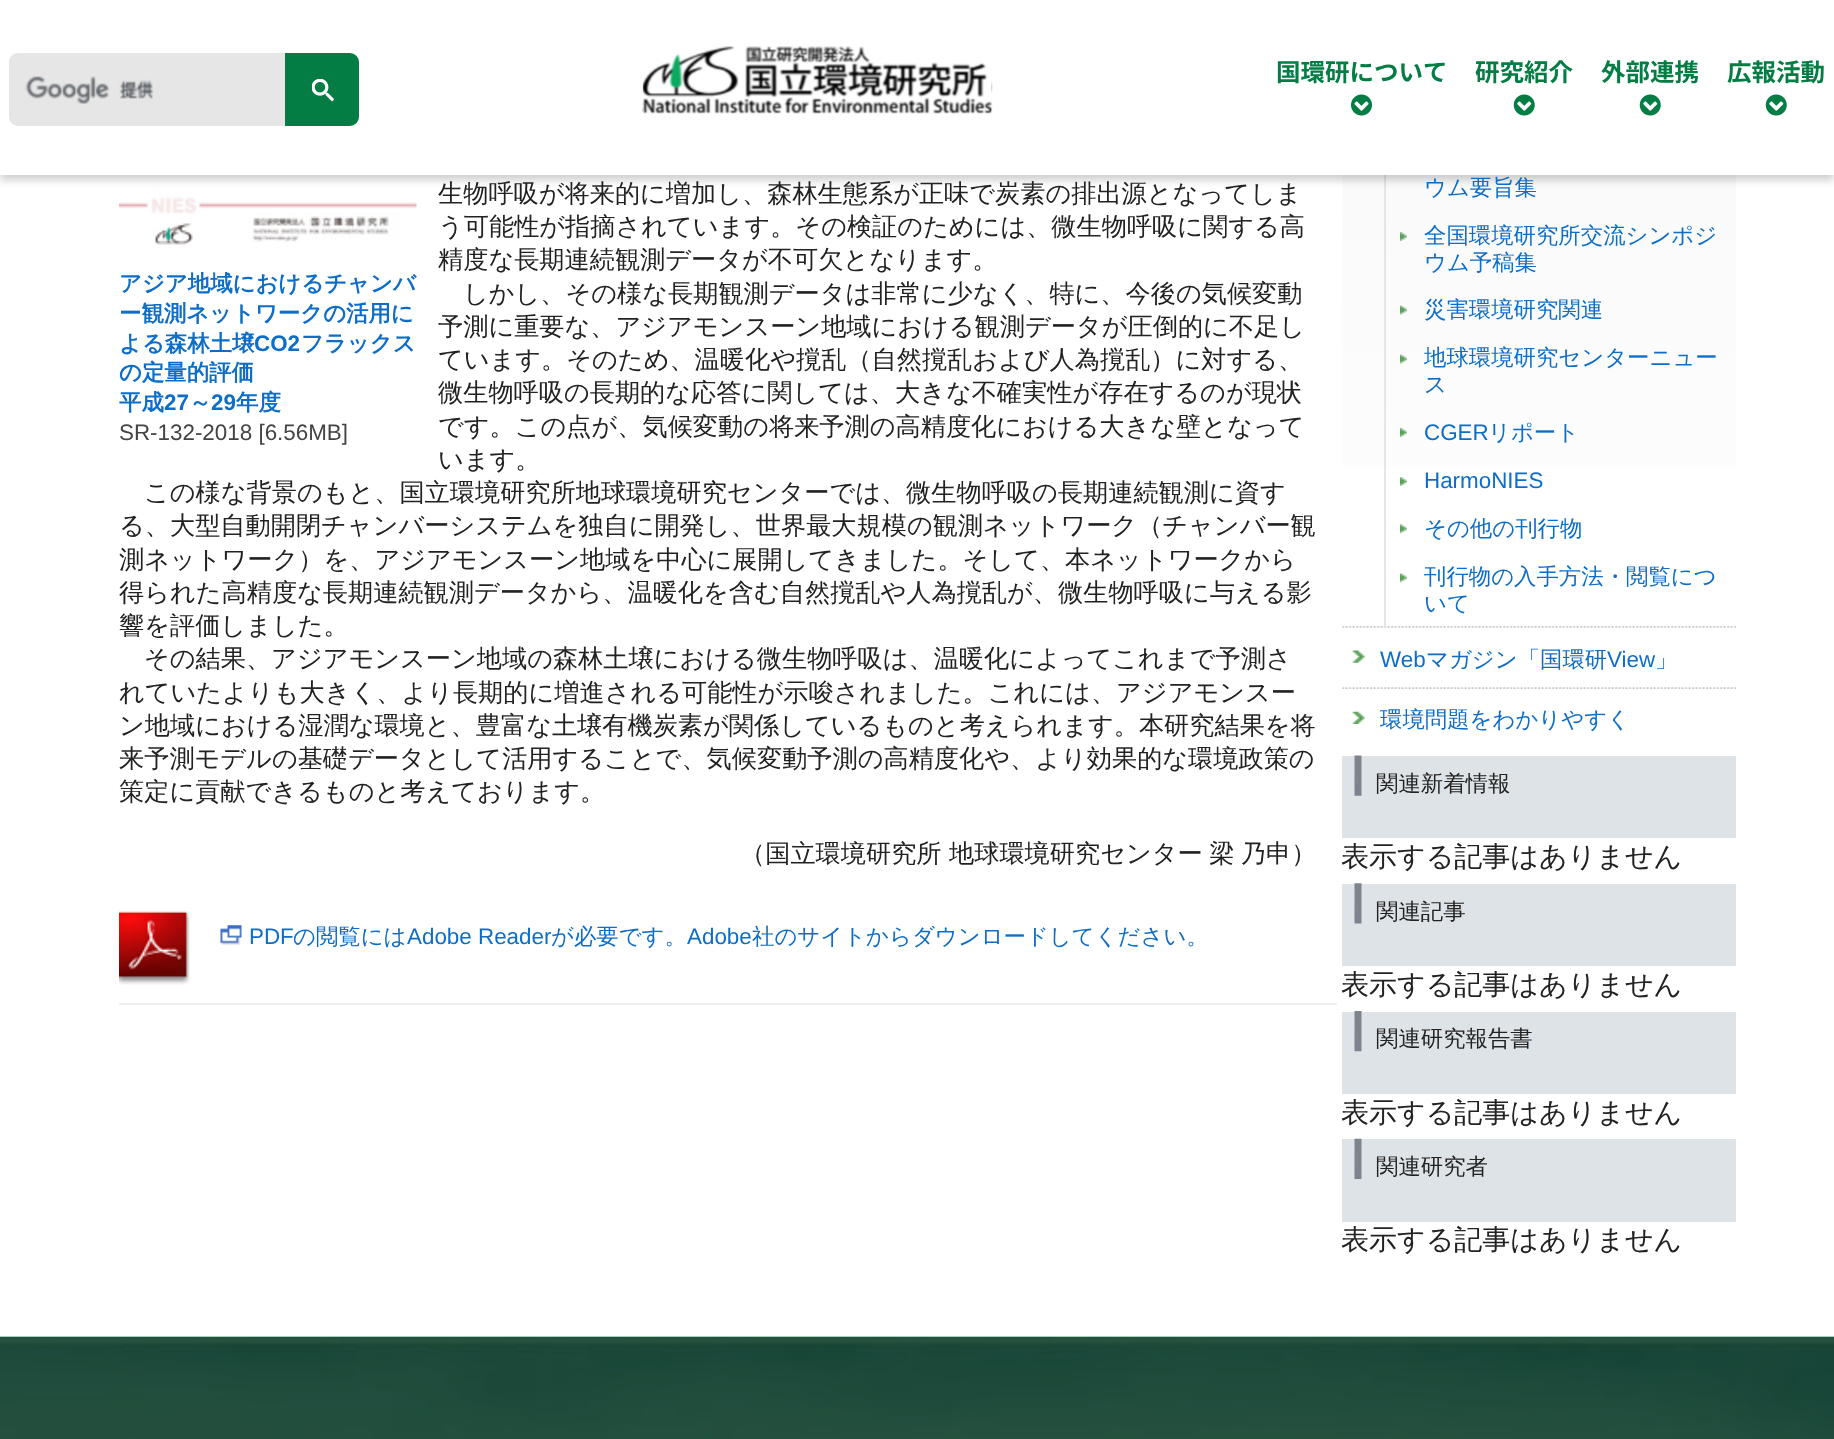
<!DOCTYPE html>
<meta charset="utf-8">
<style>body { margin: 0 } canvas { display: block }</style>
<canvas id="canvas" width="1834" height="1439"></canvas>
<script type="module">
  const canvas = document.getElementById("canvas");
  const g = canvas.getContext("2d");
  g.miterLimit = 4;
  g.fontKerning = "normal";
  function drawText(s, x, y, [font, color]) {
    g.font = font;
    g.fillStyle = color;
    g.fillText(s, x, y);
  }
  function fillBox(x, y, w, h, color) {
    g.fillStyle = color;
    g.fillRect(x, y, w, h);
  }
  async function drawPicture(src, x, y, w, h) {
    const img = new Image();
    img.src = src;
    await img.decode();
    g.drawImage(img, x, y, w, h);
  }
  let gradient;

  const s1 = ["bold 24.5px Noto Sans JP", "#047D45"];
  const s2 = ["500 25.2px WenQuanYi Zen Hei", "#222222"];
  const s3 = ["bold 22.4px WenQuanYi Zen Hei", "#0E6DC6"];
  const s4 = ["bold 22.4px Liberation Sans", "#0E6DC6"];
  const s5 = ["22.4px Liberation Sans", "#444444"];
  const s6 = ["22.4px Liberation Sans", "#0E6DC6"];
  const s7 = ["500 22.4px WenQuanYi Zen Hei", "#0E6DC6"];
  const s8 = ["500 22.4px WenQuanYi Zen Hei", "#222222"];
  const s9 = ["500 28px WenQuanYi Zen Hei", "#222222"];

  fillBox(0, 0, 1834, 1439, "#FFFFFF");
  await drawPicture("pic6.png", 119, 175, 298, 70);
  gradient = g.createLinearGradient(1539, -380, 1539, 749);
  gradient.addColorStop(0, "#F5F5F5");
  gradient.addColorStop(1, "#FFFFFF");
  g.fillStyle = gradient;
  g.fillRect(1342, 175, 394, 292);
  await drawPicture("pic9.png", 1342, 626, 394, 2);
  fillBox(1384, 175, 2, 452, "#E6E6E6");
  g.fillStyle = "rgba(0, 0, 0, 0.2)";
  g.filter = "blur(4.5px)";
  g.beginPath();
  g.rect(0, -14, 1834, 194);
  g.fill();
  g.filter = "none";
  fillBox(0, 0, 1834, 175, "#FFFFFF");
  g.fillStyle = "#E6E6E6";
  g.beginPath();
  g.roundRect(9, 53, 301, 73, [9, 0, 0, 9]);
  g.fill();
  await drawPicture("pic1.png", 25, 76, 129, 28);
  g.fillStyle = "#047D45";
  g.beginPath();
  g.roundRect(286, 54, 72, 71, [0, 8, 8, 0]);
  g.fill();
  g.strokeStyle = "#047D45";
  g.lineWidth = 2;
  g.stroke();
  await drawPicture("pic2.png", 312, 79, 22, 23);
  await drawPicture("pic3.png", 642, 46, 351, 68);
  drawText("国環研について", 1276, 81, s1);
  await drawPicture("pic4.png", 1351, 94, 21, 22);
  drawText("研究紹介", 1475, 81, s1);
  await drawPicture("pic5.png", 1513, 94, 22, 22);
  drawText("外部連携", 1601, 81, s1);
  await drawPicture("pic5.png", 1639, 94, 22, 22);
  drawText("広報活動", 1727, 81, s1);
  await drawPicture("pic5.png", 1765, 94, 22, 22);
  drawText("生物呼吸が将来的に増加し、森林生態系が正味で炭素の排出源となってしま", 438, 202, s2);
  drawText("う可能性が指摘されています。その検証のためには、微生物呼吸に関する高", 438, 235, s2);
  drawText("精度な長期連続観測データが不可欠となります。", 438, 268, s2);
  drawText("しかし、その様な長期観測データは非常に少なく、特に、今後の気候変動", 463, 302, s2);
  drawText("予測に重要な、アジアモンスーン地域における観測データが圧倒的に不足し", 438, 335, s2);
  drawText("ています。そのため、温暖化や撹乱（自然撹乱および人為撹乱）に対する、", 438, 368, s2);
  drawText("微生物呼吸の長期的な応答に関しては、大きな不確実性が存在するのが現状", 438, 401, s2);
  drawText("です。この点が、気候変動の将来予測の高精度化における大きな壁となって", 438, 435, s2);
  drawText("います。", 438, 468, s2);
  drawText("この様な背景のもと、国立環境研究所地球環境研究センターでは、微生物呼吸の長期連続観測に資す", 144, 501, s2);
  drawText("る、大型自動開閉チャンバーシステムを独自に開発し、世界最大規模の観測ネットワーク（チャンバー観", 119, 534, s2);
  drawText("測ネットワーク）を、アジアモンスーン地域を中心に展開してきました。そして、本ネットワークから", 119, 568, s2);
  drawText("得られた高精度な長期連続観測データから、温暖化を含む自然撹乱や人為撹乱が、微生物呼吸に与える影", 119, 601, s2);
  drawText("響を評価しました。", 119, 634, s2);
  drawText("その結果、アジアモンスーン地域の森林土壌における微生物呼吸は、温暖化によってこれまで予測さ", 144, 667, s2);
  drawText("れていたよりも大きく、より長期的に増進される可能性が示唆されました。これには、アジアモンスー", 119, 701, s2);
  drawText("ン地域における湿潤な環境と、豊富な土壌有機炭素が関係しているものと考えられます。本研究結果を将", 119, 734, s2);
  drawText("来予測モデルの基礎データとして活用することで、気候変動予測の高精度化や、より効果的な環境政策の", 119, 767, s2);
  drawText("策定に貢献できるものと考えております。", 119, 800, s2);
  drawText("（国立環境研究所", 740, 862, s2);
  g.wordSpacing = "-1px";
  drawText("地球環境研究センター 梁 乃申）", 949, 862, s2);
  g.wordSpacing = "0px";
  drawText("アジア地域におけるチャンバ", 119, 291, s3);
  drawText("ー観測ネットワークの活用に", 119, 321, s3);
  drawText("よる森林土壌", 119, 351, s3);
  drawText("CO2", 254, 351, s4);
  drawText("フラックス", 301, 351, s3);
  drawText("の定量的評価", 119, 380, s3);
  drawText("平成", 119, 410, s3);
  drawText("27", 164, 410, s4);
  drawText("～", 189, 410, s3);
  drawText("29", 211, 410, s4);
  drawText("年度", 236, 410, s3);
  drawText("SR-132-2018 [6.56MB]", 119, 440, s5);
  fillBox(119, 1003, 1218, 2, "#F0F0F1");
  await drawPicture("pic7.png", 119, 910, 71, 75);
  await drawPicture("pic8.png", 220, 925, 22, 20);
  drawText("PDF", 249, 944, s6);
  drawText("の閲覧には", 293, 944, s7);
  drawText("Adobe Reader", 407, 944, s6);
  drawText("が必要です。", 551, 944, s7);
  drawText("Adobe", 687, 944, s6);
  drawText("社のサイトからダウンロードしてください。", 752, 944, s7);
  drawText("ウム要旨集", 1424, 195, s7);
  await drawPicture("pic10.png", 1400, 232, 7, 9);
  drawText("全国環境研究所交流シンポジ", 1424, 243, s7);
  drawText("ウム予稿集", 1424, 270, s7);
  await drawPicture("pic11.png", 1400, 305, 7, 10);
  drawText("災害環境研究関連", 1424, 317, s7);
  await drawPicture("pic12.png", 1400, 354, 7, 10);
  drawText("地球環境研究センターニュー", 1424, 365, s7);
  drawText("ス", 1424, 392, s7);
  await drawPicture("pic13.png", 1400, 428, 7, 9);
  drawText("CGER", 1424, 440, s6);
  drawText("リポート", 1488, 440, s7);
  await drawPicture("pic14.png", 1400, 477, 7, 9);
  drawText("HarmoNIES", 1424, 488, s6);
  await drawPicture("pic15.png", 1400, 524, 7, 10);
  drawText("その他の刊行物", 1424, 536, s7);
  await drawPicture("pic16.png", 1400, 573, 7, 10);
  drawText("刊行物の入手方法・閲覧につ", 1424, 584, s7);
  drawText("いて", 1424, 611, s7);
  await drawPicture("pic17.png", 1342, 687, 394, 2);
  await drawPicture("pic18.png", 1352, 650, 13, 13);
  drawText("Web", 1380, 667, s6);
  drawText("マガジン「国環研", 1426, 667, s7);
  drawText("View", 1607, 667, s6);
  drawText("」", 1655, 667, s7);
  await drawPicture("pic19.png", 1352, 711, 13, 13);
  drawText("環境問題をわかりやすく", 1380, 727, s7);
  fillBox(1342, 756, 394, 82, "#DEE3E7");
  await drawPicture("pic20.png", 1354, 755, 8, 41);
  drawText("関連新着情報", 1376, 791, s8);
  drawText("表示する記事はありません", 1341, 866, s9);
  fillBox(1342, 884, 394, 82, "#DEE3E7");
  await drawPicture("pic21.png", 1354, 883, 8, 41);
  drawText("関連記事", 1376, 919, s8);
  drawText("表示する記事はありません", 1341, 994, s9);
  fillBox(1342, 1012, 394, 82, "#DEE3E7");
  await drawPicture("pic22.png", 1354, 1011, 8, 41);
  drawText("関連研究報告書", 1376, 1046, s8);
  drawText("表示する記事はありません", 1341, 1122, s9);
  fillBox(1342, 1139, 394, 83, "#DEE3E7");
  await drawPicture("pic23.png", 1354, 1138, 8, 41);
  drawText("関連研究者", 1376, 1174, s8);
  drawText("表示する記事はありません", 1341, 1249, s9);
  await drawPicture("pic24.png", 0, 1336, 1834, 103);
</script>
